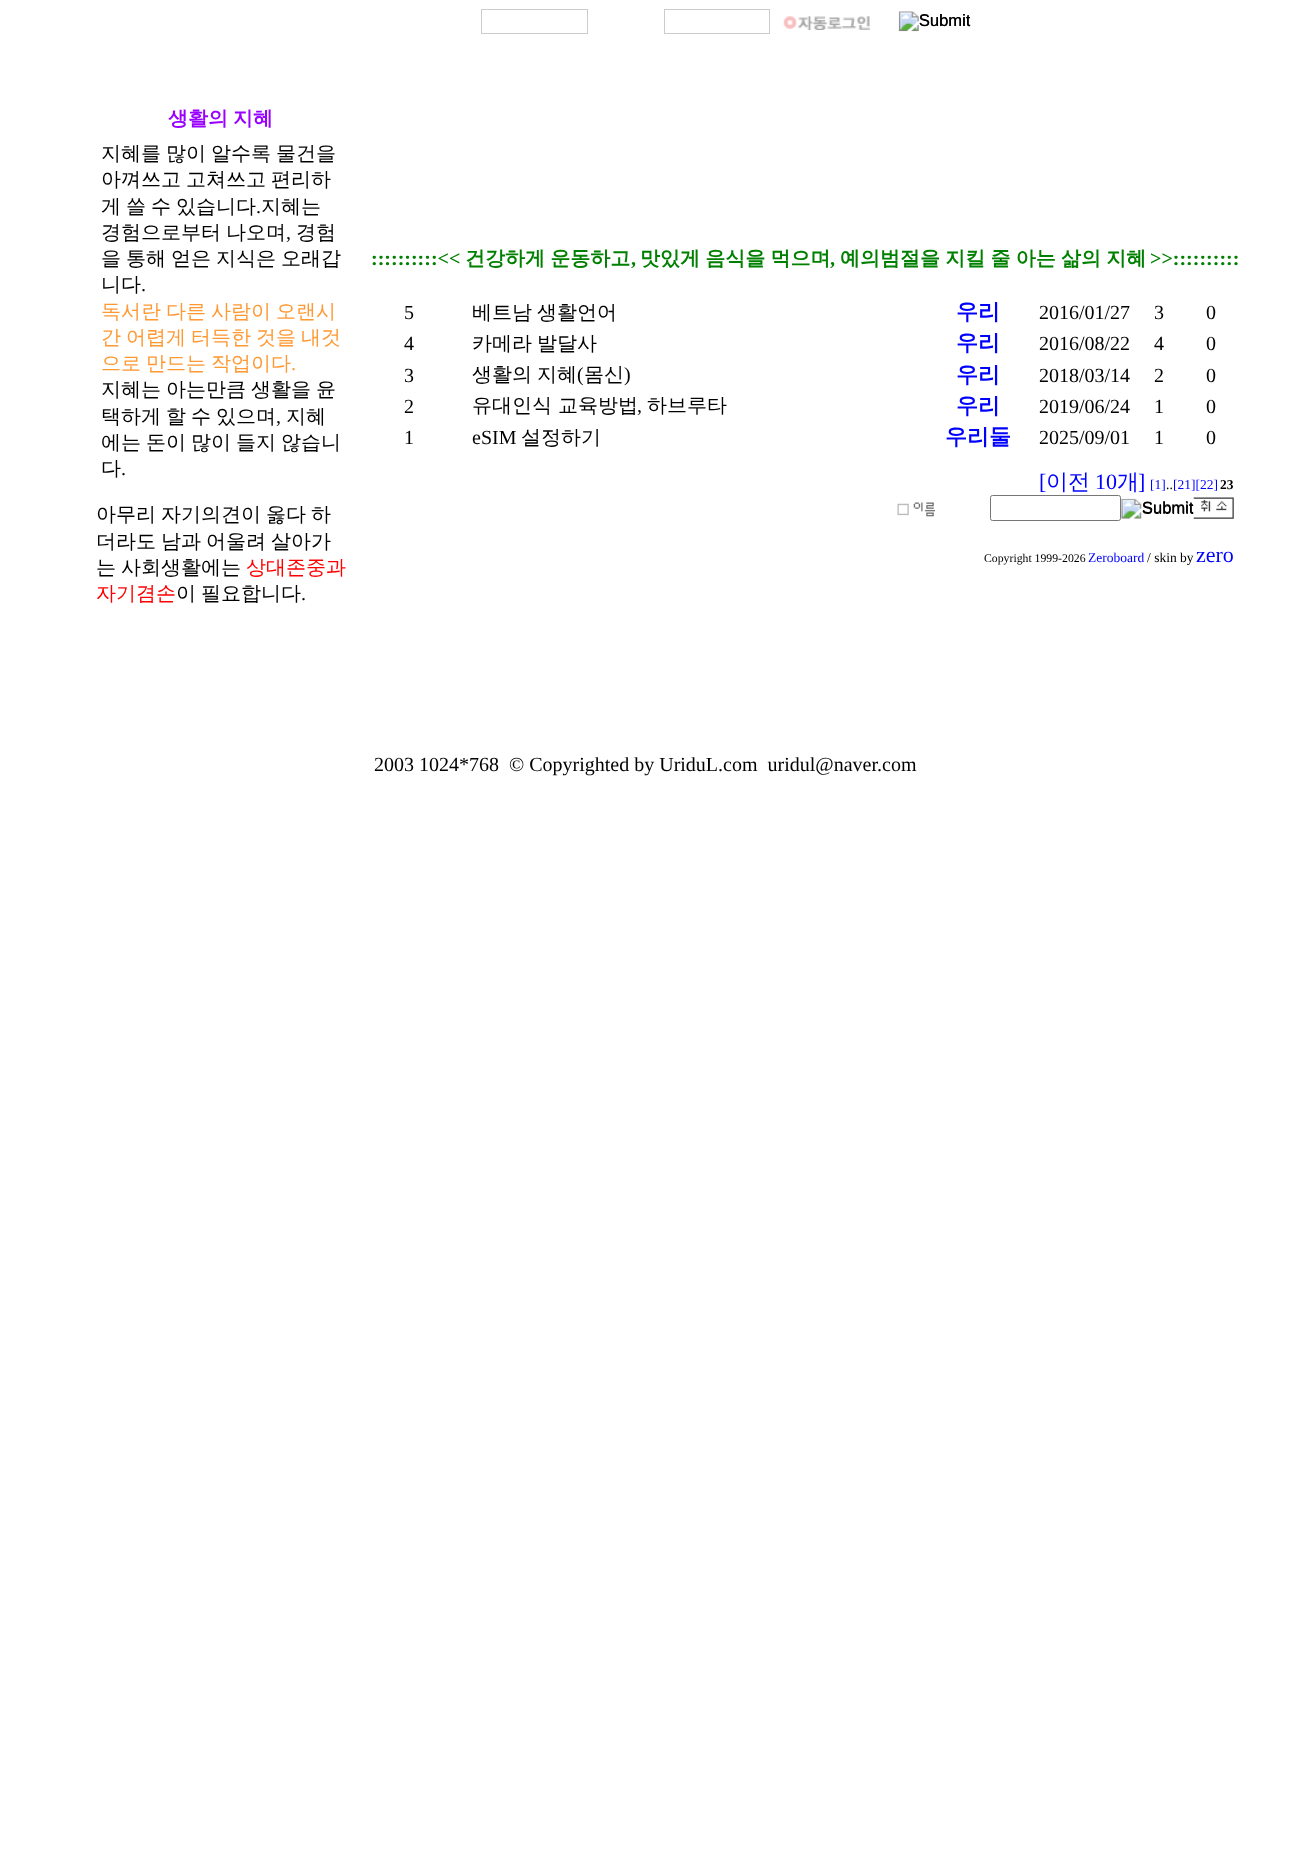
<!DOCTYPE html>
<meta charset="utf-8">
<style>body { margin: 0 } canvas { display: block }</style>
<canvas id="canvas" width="1295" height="1861"></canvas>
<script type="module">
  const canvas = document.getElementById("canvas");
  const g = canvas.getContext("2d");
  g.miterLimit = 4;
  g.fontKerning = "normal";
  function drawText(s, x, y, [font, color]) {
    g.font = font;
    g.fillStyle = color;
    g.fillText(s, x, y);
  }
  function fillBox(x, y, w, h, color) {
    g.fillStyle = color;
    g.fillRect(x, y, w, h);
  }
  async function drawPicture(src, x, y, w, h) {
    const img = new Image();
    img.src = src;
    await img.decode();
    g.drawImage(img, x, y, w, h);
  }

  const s1 = ["16.5px Liberation Sans", "#000000"];
  const s2 = ["bold 20px WenQuanYi Zen Hei", "#9900FF"];
  const s3 = ["500 20px WenQuanYi Zen Hei", "#000000"];
  const s4 = ["20px Liberation Serif", "#000000"];
  const s5 = ["500 20px WenQuanYi Zen Hei", "#FF9933"];
  const s6 = ["20px Liberation Serif", "#FF9933"];
  const s7 = ["500 20px WenQuanYi Zen Hei", "#FF0000"];
  const s8 = ["bold 20px Liberation Serif", "#008000"];
  const s9 = ["bold 20px WenQuanYi Zen Hei", "#008000"];
  const s10 = ["bold 22px WenQuanYi Zen Hei", "#0000FF"];
  const s11 = ["22px Liberation Serif", "#0000FF"];
  const s12 = ["500 22px WenQuanYi Zen Hei", "#0000FF"];
  const s13 = ["13.5px Liberation Serif", "#0000FF"];
  const s14 = ["bold 13.5px Liberation Serif", "#000000"];
  const s15 = ["13.5px Liberation Serif", "#000000"];
  const s16 = ["11.75px Liberation Serif", "#000000"];

  fillBox(0, 0, 1295, 1861, "#FFFFFF");
  g.strokeStyle = "#CCCCCC";
  g.strokeRect(481.5, 9.5, 106, 24);
  g.strokeRect(664.5, 9.5, 105, 24);
  await drawPicture("pic1.png", 783, 16, 87, 14);
  await drawPicture("pic2.png", 898, 11, 72, 21);
  drawText("Submit", 919, 26, s1);
  g.wordSpacing = "-1px";
  drawText("생활의 지혜", 168, 125, s2);
  drawText("지혜를 많이 알수록 물건을", 101, 160, s3);
  drawText("아껴쓰고 고쳐쓰고 편리하", 101, 186, s3);
  drawText("게 쓸 수 있습니다", 101, 213, s3);
  g.wordSpacing = "0px";
  drawText(".", 256, 213, s4);
  drawText("지혜는", 261, 213, s3);
  drawText("경험으로부터", 101, 239, s3);
  drawText("나오며", 226, 239, s3);
  drawText(",", 286, 239, s4);
  drawText("경험", 296, 239, s3);
  g.wordSpacing = "-1px";
  drawText("을 통해 얻은 지식은 오래갑", 101, 265, s3);
  g.wordSpacing = "0px";
  drawText("니다", 101, 291, s3);
  drawText(".", 141, 291, s4);
  drawText("독서란", 101, 318, s5);
  g.wordSpacing = "-1px";
  drawText("다른 사람이 오랜시", 166, 318, s5);
  drawText("간 어렵게 터득한 것을 내것", 101, 344, s5);
  drawText("으로 만드는 작업이다", 101, 370, s5);
  g.wordSpacing = "0px";
  drawText(".", 291, 370, s6);
  g.wordSpacing = "-1px";
  drawText("지혜는 아는만큼 생활을", 101, 396, s3);
  g.wordSpacing = "0px";
  drawText("윤", 316, 396, s3);
  g.wordSpacing = "-1px";
  drawText("택하게 할 수", 101, 423, s3);
  g.wordSpacing = "0px";
  drawText("있으며", 216, 423, s3);
  drawText(",", 276, 423, s4);
  drawText("지혜", 286, 423, s3);
  g.wordSpacing = "-1px";
  drawText("에는 돈이 많이 들지 않습니", 101, 449, s3);
  g.wordSpacing = "0px";
  drawText("다", 101, 475, s3);
  drawText(".", 121, 475, s4);
  g.wordSpacing = "-1px";
  drawText("아무리 자기의견이 옳다 하", 96, 521, s3);
  drawText("더라도 남과 어울려 살아가", 96, 548, s3);
  drawText("는 사회생활에는", 96, 574, s3);
  g.wordSpacing = "0px";
  drawText("상대존중과", 246, 574, s7);
  drawText("자기겸손", 96, 600, s7);
  g.wordSpacing = "-1px";
  drawText("이 필요합니다", 176, 600, s3);
  g.wordSpacing = "0px";
  drawText(".", 301, 600, s4);
  drawText("::::::::::<<", 371, 265, s8);
  g.wordSpacing = "-0.75px";
  drawText("건강하게 운동하고", 465, 265, s9);
  g.wordSpacing = "0px";
  drawText(",", 631, 265, s8);
  g.wordSpacing = "-0.75px";
  drawText("맛있게 음식을 먹으며", 640, 265, s9);
  g.wordSpacing = "0px";
  drawText(",", 830, 265, s8);
  g.wordSpacing = "-0.75px";
  drawText("예의범절을 지킬 줄 아는 삶의 지혜", 840, 265, s9);
  g.wordSpacing = "0px";
  drawText(">>::::::::::", 1150, 265, s8);
  drawText("5", 404, 319, s4);
  g.wordSpacing = "-1px";
  drawText("베트남 생활언어", 472, 319, s3);
  g.wordSpacing = "0px";
  drawText("우리", 956, 319, s10);
  drawText("2016/01/27", 1039, 319, s4);
  drawText("3", 1154, 319, s4);
  drawText("0", 1206, 319, s4);
  drawText("4", 404, 350, s4);
  g.wordSpacing = "-1px";
  drawText("카메라 발달사", 472, 350, s3);
  g.wordSpacing = "0px";
  drawText("우리", 956, 350, s10);
  drawText("2016/08/22", 1039, 350, s4);
  drawText("4", 1154, 350, s4);
  drawText("0", 1206, 350, s4);
  drawText("3", 404, 382, s4);
  g.wordSpacing = "-1px";
  drawText("생활의 지혜", 472, 381, s3);
  g.wordSpacing = "0px";
  drawText("(", 577, 381, s4);
  drawText("몸신", 584, 381, s3);
  drawText(")", 624, 381, s4);
  drawText("우리", 956, 382, s10);
  drawText("2018/03/14", 1039, 382, s4);
  drawText("2", 1154, 382, s4);
  drawText("0", 1206, 382, s4);
  drawText("2", 404, 413, s4);
  drawText("유대인식 교육방법", 472, 412, s3);
  drawText(",", 637, 412, s4);
  drawText("하브루타", 647, 412, s3);
  drawText("우리", 956, 413, s10);
  drawText("2019/06/24", 1039, 413, s4);
  drawText("1", 1154, 413, s4);
  drawText("0", 1206, 413, s4);
  drawText("1", 404, 444, s4);
  drawText("eSIM", 472, 444, s4);
  drawText("설정하기", 521, 444, s3);
  drawText("우리둘", 945, 444, s10);
  drawText("2025/09/01", 1039, 444, s4);
  drawText("1", 1154, 444, s4);
  drawText("0", 1206, 444, s4);
  drawText("[", 1039, 489, s11);
  drawText("이전", 1046, 489, s12);
  drawText("10", 1095, 489, s11);
  drawText("개", 1117, 489, s12);
  drawText("]", 1138, 489, s11);
  drawText("[21][22]", 1173, 489, s13);
  drawText("23", 1220, 489, s14);
  await drawPicture("pic3.png", 897, 502, 38, 15);
  g.beginPath();
  g.roundRect(990.5, 495.5, 130, 25, 2);
  g.strokeStyle = "#767676";
  g.stroke();
  await drawPicture("pic4.png", 1121, 498, 73, 21);
  drawText("Submit", 1142, 513, s1);
  await drawPicture("pic5.png", 1193, 497, 41, 22);
  drawText("..", 1166, 489, s15);
  drawText("[1]", 1150, 489, s13);
  drawText("Copyright 1999-2026", 984, 562, s16);
  drawText("Zeroboard", 1088, 562, s13);
  drawText("/ skin by", 1147, 562, s15);
  drawText("zero", 1196, 562, s11);
  drawText("2003 1024*768  © Copyrighted by UriduL.com  uridul@naver.com", 374, 771, s4);
</script>
